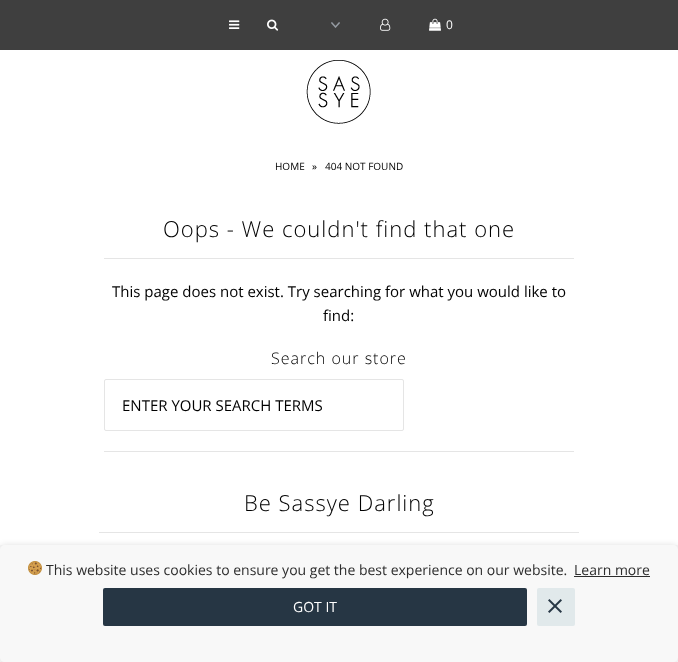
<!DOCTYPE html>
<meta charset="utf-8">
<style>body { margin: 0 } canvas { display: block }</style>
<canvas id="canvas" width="678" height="662"></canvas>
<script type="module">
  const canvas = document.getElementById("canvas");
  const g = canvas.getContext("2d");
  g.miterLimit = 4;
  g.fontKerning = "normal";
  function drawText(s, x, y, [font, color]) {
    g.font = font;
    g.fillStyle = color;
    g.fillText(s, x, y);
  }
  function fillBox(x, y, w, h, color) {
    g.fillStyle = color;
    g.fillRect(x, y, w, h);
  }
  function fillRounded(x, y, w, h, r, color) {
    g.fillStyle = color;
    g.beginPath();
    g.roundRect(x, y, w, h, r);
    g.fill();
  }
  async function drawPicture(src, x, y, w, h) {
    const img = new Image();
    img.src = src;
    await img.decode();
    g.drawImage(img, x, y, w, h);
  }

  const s1 = ["12px Open Sans", "#FFFFFF"];
  const s2 = ["10px Open Sans", "#000000"];
  const s3 = ["300 22px Open Sans", "#000000"];
  const s4 = ["15px Open Sans", "#000000"];
  const s5 = ["300 16px Open Sans", "#000000"];
  const s6 = ["14px Open Sans", "#2D2D2D"];
  const s7 = ["14px Open Sans", "#FFFFFF"];

  fillBox(0, 0, 678, 662, "#FFFFFF");
  fillBox(0, 0, 678, 50, "#3F3F3F");
  await drawPicture("pic1.png", 229, 20, 11, 9);
  await drawPicture("pic2.png", 267, 19, 12, 12);
  await drawPicture("pic3.png", 331, 22, 9, 6);
  await drawPicture("pic4.png", 380, 18, 11, 13);
  await drawPicture("pic5.png", 429, 18, 12, 13);
  g.letterSpacing = "1px";
  drawText("0", 446, 29, s1);
  await drawPicture("pic6.png", 306, 60, 65, 64);
  g.letterSpacing = "0px";
  drawText("HOME", 275, 170, s2);
  drawText("»", 312, 170, s2);
  drawText("404 NOT FOUND", 325, 170, s2);
  fillBox(104, 258, 470, 1, "#E5E5E5");
  g.letterSpacing = "1px";
  drawText("Oops - We couldn't find that one", 163, 237, s3);
  g.letterSpacing = "0px";
  drawText("This page does not exist. Try searching for what you would like to", 112, 297, s4);
  drawText("find:", 323, 321, s4);
  fillBox(104, 451, 470, 1, "#E5E5E5");
  g.letterSpacing = "1px";
  drawText("Search our store", 271, 364, s5);
  g.beginPath();
  g.roundRect(104.5, 379.5, 299, 51, 1.5);
  g.strokeStyle = "#E5E5E5";
  g.stroke();
  g.letterSpacing = "0px";
  drawText("ENTER YOUR SEARCH TERMS", 122, 411, s4);
  fillBox(99, 532, 480, 1, "#E5E5E5");
  g.letterSpacing = "1px";
  drawText("Be Sassye Darling", 244, 511, s3);
  fillBox(0, 545, 678, 117, "#F8F8F8");
  g.save();
  g.beginPath();
  g.moveTo(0, 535);
  g.lineTo(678, 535);
  g.lineTo(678, 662);
  g.lineTo(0, 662);
  g.closePath();
  g.moveTo(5, 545);
  g.lineTo(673, 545);
  g.bezierCurveTo(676, 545, 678, 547, 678, 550);
  g.lineTo(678, 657);
  g.bezierCurveTo(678, 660, 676, 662, 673, 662);
  g.lineTo(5, 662);
  g.bezierCurveTo(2, 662, 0, 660, 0, 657);
  g.lineTo(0, 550);
  g.bezierCurveTo(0, 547, 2, 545, 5, 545);
  g.closePath();
  g.clip("evenodd");
  g.fillStyle = "rgba(0, 0, 0, 0.12)";
  g.filter = "blur(3px)";
  g.beginPath();
  g.roundRect(0, 545, 678, 117, 5);
  g.fill();
  g.filter = "none";
  g.restore();
  await drawPicture("pic7.png", 28, 561, 14, 14);
  g.letterSpacing = "0px";
  drawText("This website uses cookies to ensure you get the best experience on our website.", 46, 575, s6);
  drawText("Learn more", 574, 575, s6);
  fillBox(574, 576, 76, 1, "#2D2D2D");
  fillRounded(103, 588, 424, 38, 2, "#263644");
  drawText("GOT IT", 293, 612, s7);
  fillRounded(537, 588, 38, 38, 2, "#E1E9EB");
  await drawPicture("pic8.png", 548, 599, 14, 14);
</script>
